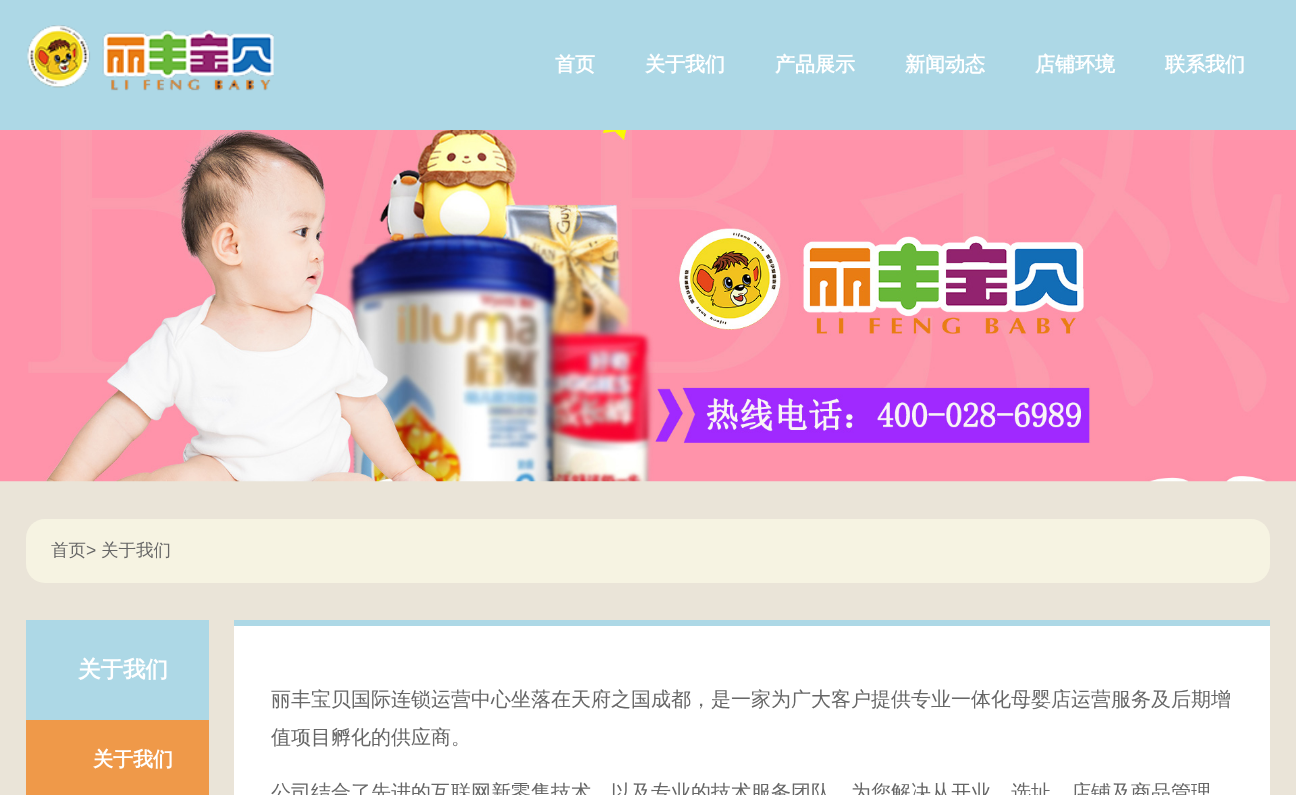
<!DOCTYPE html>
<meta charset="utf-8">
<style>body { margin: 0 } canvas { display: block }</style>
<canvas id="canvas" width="1296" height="795"></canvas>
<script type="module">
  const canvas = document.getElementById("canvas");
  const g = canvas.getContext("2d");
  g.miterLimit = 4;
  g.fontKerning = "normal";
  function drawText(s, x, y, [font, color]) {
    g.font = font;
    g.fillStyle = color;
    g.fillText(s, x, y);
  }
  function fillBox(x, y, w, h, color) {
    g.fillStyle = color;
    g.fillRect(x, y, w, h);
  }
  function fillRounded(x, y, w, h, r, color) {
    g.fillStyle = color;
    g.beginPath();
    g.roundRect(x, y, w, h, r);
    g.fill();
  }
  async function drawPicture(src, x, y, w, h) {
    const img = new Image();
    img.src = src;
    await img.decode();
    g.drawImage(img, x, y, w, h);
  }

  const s1 = ["bold 20px WenQuanYi Zen Hei", "#FFFFFF"];
  const s2 = ["500 17.5px WenQuanYi Zen Hei", "#666666"];
  const s3 = ["17.5px Liberation Sans", "#666666"];
  const s4 = ["bold 22.5px WenQuanYi Zen Hei", "#FFFFFF"];
  const s5 = ["500 20px WenQuanYi Zen Hei", "#666666"];

  fillBox(0, 0, 1296, 795, "#ADD8E6");
  await drawPicture("pic1.png", 27, 25, 247, 66);
  drawText("首页", 555, 71, s1);
  drawText("关于我们", 645, 71, s1);
  drawText("产品展示", 775, 71, s1);
  drawText("新闻动态", 905, 71, s1);
  drawText("店铺环境", 1035, 71, s1);
  drawText("联系我们", 1165, 71, s1);
  fillBox(0, 481, 1296, 314, "#EAE4D8");
  await drawPicture("pic2.png", 0, 130, 1296, 352);
  fillRounded(26, 519, 1244, 64, 19, "#F6F3E2");
  drawText("首页", 51, 556, s2);
  drawText(">", 86, 556, s3);
  drawText("关于我们", 101, 556, s2);
  fillBox(26, 620, 183, 100, "#ADD8E6");
  drawText("关于我们", 78, 677, s4);
  fillBox(26, 720, 183, 75, "#EF9949");
  drawText("关于我们", 93, 766, s1);
  fillBox(234, 626, 1036, 169, "#FFFFFF");
  fillBox(234, 620, 1036, 6, "#ADD8E6");
  drawText("丽丰宝贝国际连锁运营中心坐落在天府之国成都，是一家为广大客户提供专业一体化母婴店运营服务及后期增", 271, 706, s5);
  drawText("值项目孵化的供应商。", 271, 744, s5);
  drawText("公司结合了先进的互联网新零售技术，以及专业的技术服务团队，为您解决从开业、选址、店铺及商品管理", 271, 799, s5);
</script>
